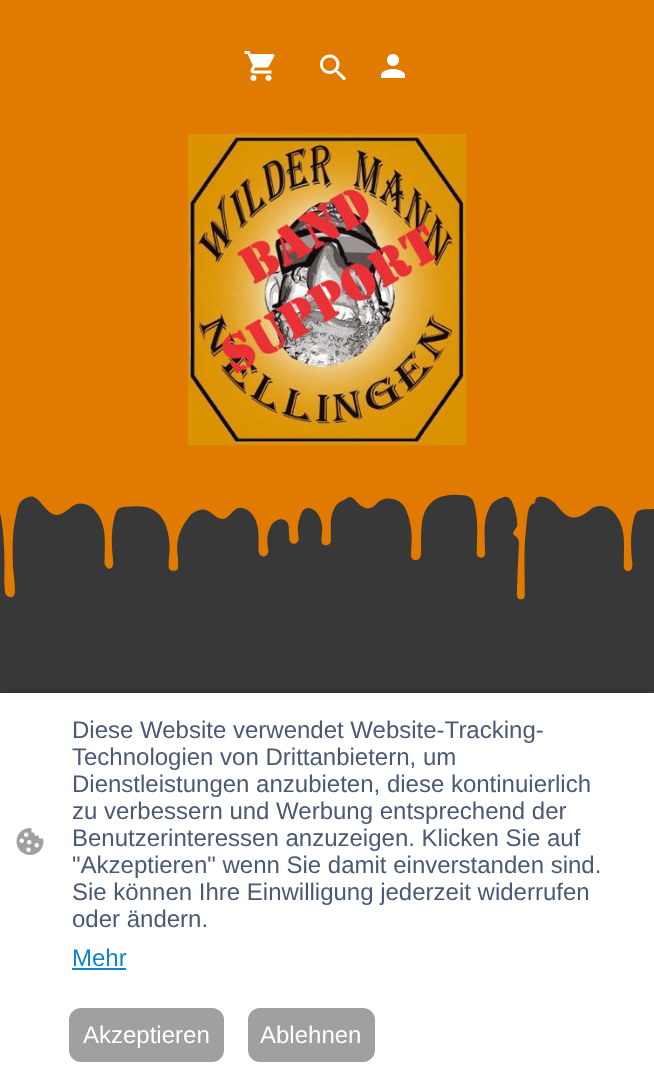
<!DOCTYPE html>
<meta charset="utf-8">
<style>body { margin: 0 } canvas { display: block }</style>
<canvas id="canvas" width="654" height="1073"></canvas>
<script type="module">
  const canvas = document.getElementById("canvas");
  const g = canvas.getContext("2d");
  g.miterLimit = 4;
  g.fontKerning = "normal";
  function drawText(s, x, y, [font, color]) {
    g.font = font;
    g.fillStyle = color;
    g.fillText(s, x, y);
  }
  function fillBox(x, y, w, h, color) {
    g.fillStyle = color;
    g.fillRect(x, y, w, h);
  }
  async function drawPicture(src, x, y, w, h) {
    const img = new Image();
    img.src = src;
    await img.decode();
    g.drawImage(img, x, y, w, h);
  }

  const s1 = ["24px Liberation Sans", "#4A5A73"];
  const s2 = ["24px Liberation Sans", "#1183D1"];
  const s3 = ["24px Liberation Sans", "#FFFFFF"];

  fillBox(0, 0, 654, 1073, "#E17A00");
  await drawPicture("pic1.png", 244, 51, 31, 30);
  await drawPicture("pic2.png", 320, 54, 27, 27);
  await drawPicture("pic3.png", 381, 54, 24, 24);
  await drawPicture("pic4.png", 187, 133, 280, 313);
  await drawPicture("pic5.png", 0, 494, 654, 199);
  g.fillStyle = "rgba(0, 0, 0, 0.63)";
  g.filter = "blur(6px)";
  g.beginPath();
  g.rect(9, 698, 636, 363);
  g.fill();
  g.filter = "none";
  fillBox(0, 693, 654, 380, "#FFFFFF");
  await drawPicture("pic6.png", 16, 828, 28, 27);
  drawText("Diese Website verwendet Website-Tracking-", 72, 738, s1);
  drawText("Technologien von Drittanbietern, um", 72, 765, s1);
  drawText("Dienstleistungen anzubieten, diese kontinuierlich", 72, 792, s1);
  drawText("zu verbessern und Werbung entsprechend der", 72, 819, s1);
  drawText("Benutzerinteressen anzuzeigen. Klicken Sie auf", 72, 846, s1);
  drawText("\"Akzeptieren\" wenn Sie damit einverstanden sind.", 72, 873, s1);
  drawText("Sie können Ihre Einwilligung jederzeit widerrufen", 72, 900, s1);
  drawText("oder ändern.", 72, 927, s1);
  drawText("Mehr", 72, 966, s2);
  fillBox(72, 968, 54, 2, "#1183D1");
  g.fillStyle = "#A0A0A0";
  g.beginPath();
  g.roundRect(70, 1009, 153, 52, 11);
  g.fill();
  g.strokeStyle = "#A0A0A0";
  g.lineWidth = 2;
  g.stroke();
  drawText("Akzeptieren", 83, 1043, s3);
  g.fillStyle = "#A0A0A0";
  g.beginPath();
  g.roundRect(249, 1009, 125, 52, 11);
  g.fill();
  g.stroke();
  drawText("Ablehnen", 260, 1043, s3);
</script>
